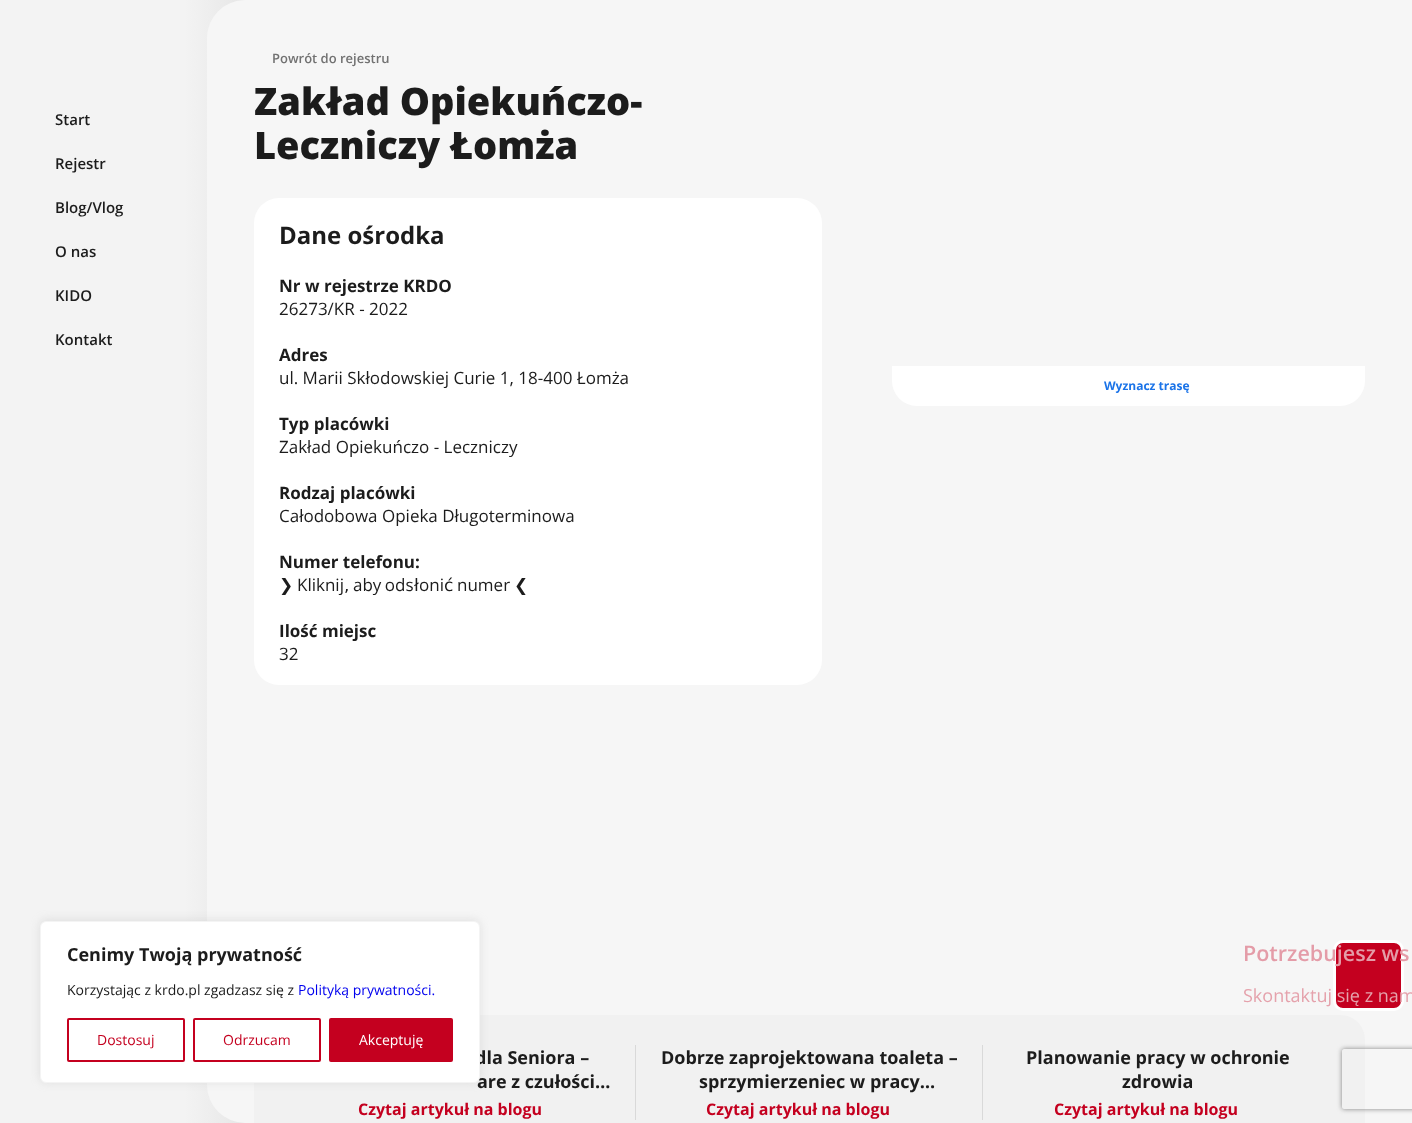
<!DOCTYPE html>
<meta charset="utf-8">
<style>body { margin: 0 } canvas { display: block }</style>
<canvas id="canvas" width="1412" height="1123"></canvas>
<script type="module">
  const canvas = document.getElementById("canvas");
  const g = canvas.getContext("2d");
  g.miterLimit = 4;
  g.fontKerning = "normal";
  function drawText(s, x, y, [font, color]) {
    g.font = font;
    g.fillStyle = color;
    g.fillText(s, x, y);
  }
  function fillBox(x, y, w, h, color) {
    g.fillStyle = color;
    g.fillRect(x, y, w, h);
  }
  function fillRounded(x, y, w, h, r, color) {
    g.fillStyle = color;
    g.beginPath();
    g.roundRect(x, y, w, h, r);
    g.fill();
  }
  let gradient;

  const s1 = ["600 15px Open Sans", "#1C1C1C"];
  const s2 = ["600 13px Open Sans", "#717171"];
  const s3 = ["800 38px Open Sans", "#1C1C1C"];
  const s4 = ["bold 24px Open Sans", "#1C1C1C"];
  const s5 = ["bold 17px Open Sans", "#1C1C1C"];
  const s6 = ["17px Open Sans", "#1C1C1C"];
  const s7 = ["17px DejaVu Sans", "#1C1C1C"];
  const s8 = ["bold 12px Open Sans", "#1A73E8"];
  const s9 = ["bold 18px Open Sans", "#1C1C1C"];
  const s10 = ["14px Open Sans", "#1C1C1C"];
  const s11 = ["14px Open Sans", "#0000EE"];
  const s12 = ["14px Open Sans", "#C4001F"];
  const s13 = ["14px Open Sans", "#FFFFFF"];
  const s14 = ["600 21.5px Open Sans", "#E49CA8"];
  const s15 = ["18px Open Sans", "#E5A2AC"];
  const s16 = ["bold 16px Open Sans", "#C4001F"];

  fillBox(0, 0, 1412, 1123, "#F6F6F6");
  gradient = g.createLinearGradient(0, 562, 246, 562);
  gradient.addColorStop(0, "#F3F3F3");
  gradient.addColorStop(0.75, "#F3F3F3");
  gradient.addColorStop(1, "#E6E6E6");
  g.fillStyle = gradient;
  g.fillRect(0, 0, 245, 1123);
  drawText("Start", 55, 125, s1);
  drawText("Rejestr", 55, 169, s1);
  drawText("Blog/Vlog", 55, 213, s1);
  drawText("O nas", 55, 257, s1);
  drawText("KIDO", 55, 301, s1);
  drawText("Kontakt", 55, 345, s1);
  g.fillStyle = "#F6F6F6";
  g.beginPath();
  g.roundRect(207, 0, 39, 1123, [38, 0, 0, 38]);
  g.fill();
  drawText("Powrót do rejestru", 272, 63, s2);
  drawText("Zakład Opiekuńczo-", 254, 115, s3);
  drawText("Leczniczy Łomża", 254, 159, s3);
  fillRounded(254, 198, 568, 487, 25, "#FFFFFF");
  drawText("Dane ośrodka", 279, 244, s4);
  drawText("Nr w rejestrze KRDO", 279, 292, s5);
  drawText("26273/KR - 2022", 279, 315, s6);
  drawText("Adres", 279, 361, s5);
  drawText("ul. Marii Skłodowskiej Curie 1, 18-400 Łomża", 279, 384, s6);
  drawText("Typ placówki", 279, 430, s5);
  drawText("Zakład Opiekuńczo - Leczniczy", 279, 453, s6);
  drawText("Rodzaj placówki", 279, 499, s5);
  drawText("Całodobowa Opieka Długoterminowa", 279, 522, s6);
  drawText("Numer telefonu:", 279, 568, s5);
  drawText("❯", 279, 591, s7);
  drawText("Kliknij", 297, 591, s6);
  drawText(",", 344, 591, s7);
  g.wordSpacing = "-1px";
  drawText("aby ods", 353, 591, s6);
  g.wordSpacing = "0px";
  drawText("ł", 414, 591, s7);
  drawText("oni", 419, 591, s6);
  drawText("ć", 444, 591, s7);
  drawText("numer", 457, 591, s6);
  drawText("❮", 514, 591, s7);
  drawText("Ilość miejsc", 279, 637, s5);
  drawText("32", 279, 660, s6);
  g.fillStyle = "#FFFFFF";
  g.beginPath();
  g.roundRect(892, 366, 473, 40, [0, 0, 25, 25]);
  g.fill();
  drawText("Wyznacz trasę", 1104, 390, s8);
  g.fillStyle = "#F1F1F1";
  g.beginPath();
  g.moveTo(279, 1015);
  g.lineTo(1340, 1015);
  g.bezierCurveTo(1354, 1015, 1365, 1026, 1365, 1040);
  g.lineTo(1365, 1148);
  g.lineTo(254, 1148);
  g.lineTo(254, 1040);
  g.bezierCurveTo(254, 1026, 265, 1015, 279, 1015);
  g.closePath();
  g.fill();
  g.fillStyle = "rgba(172, 171, 171, 0.3)";
  g.filter = "blur(5px)";
  g.beginPath();
  g.roundRect(40, 920, 440, 162, 6);
  g.fill();
  g.filter = "none";
  drawText("dla Seniora –", 475, 1064, s9);
  drawText("are z czułości…", 477, 1088, s9);
  g.fillStyle = "#FFFFFF";
  g.beginPath();
  g.roundRect(40.5, 921.5, 439, 161, 5.5);
  g.fill();
  g.strokeStyle = "#F4F4F4";
  g.stroke();
  drawText("Cenimy Twoją prywatność", 67, 961, s9);
  drawText("Korzystając z krdo.pl zgadzasz się z", 67, 995, s10);
  drawText("Polityką prywatności.", 298, 995, s11);
  g.beginPath();
  g.roundRect(68, 1019, 116, 42, 1);
  g.strokeStyle = "#C4001F";
  g.lineWidth = 2;
  g.stroke();
  drawText("Dostosuj", 97, 1045, s12);
  g.beginPath();
  g.roundRect(194, 1019, 126, 42, 1);
  g.stroke();
  drawText("Odrzucam", 223, 1045, s12);
  g.beginPath();
  g.roundRect(330, 1019, 122, 42, 1);
  g.fill();
  g.stroke();
  drawText("Akceptuję", 359, 1045, s13);
  g.fillStyle = "#C4001F";
  g.beginPath();
  g.roundRect(1334.5, 941.5, 68, 68, 8.5);
  g.fill();
  g.strokeStyle = "#FFFFFF";
  g.lineWidth = 3;
  g.stroke();
  drawText("Potrzebujesz ws", 1243, 961, s14);
  drawText("Skontaktuj się z nam", 1243, 1002, s15);
  fillBox(635, 1045, 1, 75, "#D9D9D9");
  drawText("Czytaj artykuł na blogu", 358, 1115, s16);
  fillBox(982, 1045, 1, 75, "#D9D9D9");
  drawText("Dobrze zaprojektowana toaleta –", 661, 1064, s9);
  drawText("sprzymierzeniec w pracy…", 699, 1088, s9);
  drawText("Czytaj artykuł na blogu", 706, 1115, s16);
  drawText("Planowanie pracy w ochronie", 1026, 1064, s9);
  drawText("zdrowia", 1122, 1088, s9);
  drawText("Czytaj artykuł na blogu", 1054, 1115, s16);
  g.save();
  g.beginPath();
  g.moveTo(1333, 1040);
  g.lineTo(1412, 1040);
  g.lineTo(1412, 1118);
  g.lineTo(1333, 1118);
  g.closePath();
  g.moveTo(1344, 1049);
  g.lineTo(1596, 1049);
  g.bezierCurveTo(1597, 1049, 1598, 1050, 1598, 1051);
  g.lineTo(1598, 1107);
  g.bezierCurveTo(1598, 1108, 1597, 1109, 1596, 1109);
  g.lineTo(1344, 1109);
  g.bezierCurveTo(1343, 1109, 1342, 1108, 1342, 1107);
  g.lineTo(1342, 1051);
  g.bezierCurveTo(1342, 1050, 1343, 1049, 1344, 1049);
  g.closePath();
  g.clip("evenodd");
  g.fillStyle = "#808080";
  g.filter = "blur(2.5px)";
  g.beginPath();
  g.roundRect(1342, 1049, 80, 60, 2);
  g.fill();
  g.filter = "none";
  g.restore();
</script>
